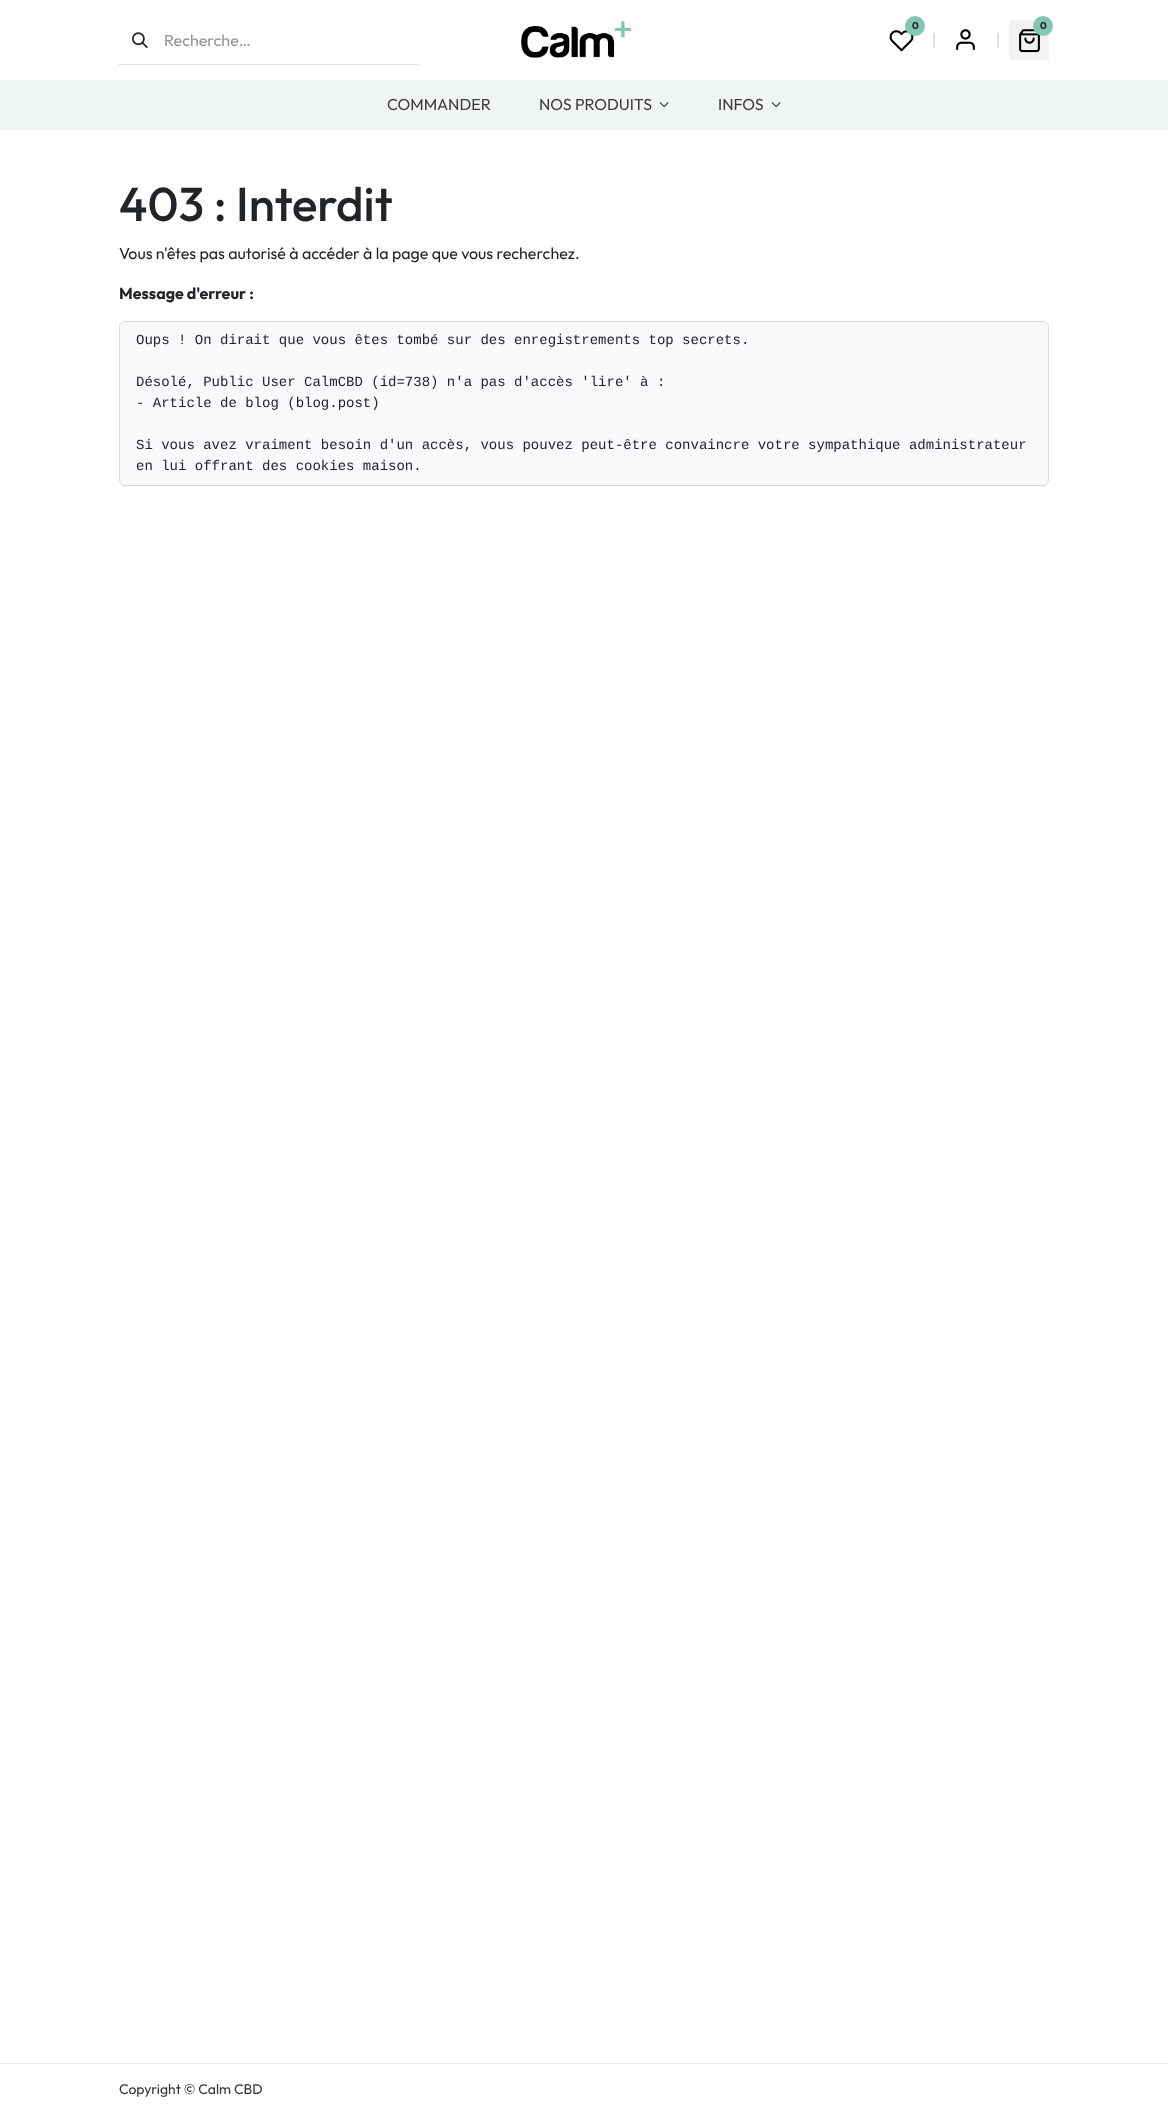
<!DOCTYPE html>
<meta charset="utf-8">
<style>body { margin: 0 } canvas { display: block }</style>
<canvas id="canvas" width="1168" height="2116"></canvas>
<script type="module">
  const canvas = document.getElementById("canvas");
  const g = canvas.getContext("2d");
  g.miterLimit = 4;
  g.fontKerning = "normal";
  function drawText(s, x, y, [font, color]) {
    g.font = font;
    g.fillStyle = color;
    g.fillText(s, x, y);
  }
  function fillBox(x, y, w, h, color) {
    g.fillStyle = color;
    g.fillRect(x, y, w, h);
  }
  async function drawPicture(src, x, y, w, h) {
    const img = new Image();
    img.src = src;
    await img.decode();
    g.drawImage(img, x, y, w, h);
  }

  const s1 = ["bold 10px Outfit", "#212529"];
  const s2 = ["16px Outfit", "#909294"];
  const s3 = ["16px Outfit", "#3C3D3D"];
  const s4 = ["500 47.5px Outfit", "#212529"];
  const s5 = ["16px Outfit", "#212529"];
  const s6 = ["bold 16px Outfit", "#212529"];
  const s7 = ["14px Liberation Mono", "#212529"];
  const s8 = ["14px Outfit", "#333333"];

  fillBox(0, 0, 1168, 2116, "#FFFFFF");
  g.fillStyle = "rgba(0, 0, 0, 0.1)";
  g.filter = "blur(1.5px)";
  g.beginPath();
  g.rect(0, 1, 1168, 128);
  g.fill();
  g.filter = "none";
  fillBox(0, 80, 1168, 48, "#F0F5F4");
  fillBox(0, 0, 1168, 80, "#FFFFFF");
  await drawPicture("pic1.png", 521, 21, 110, 37);
  await drawPicture("pic2.png", 889, 30, 25, 22);
  g.fillStyle = "#81C7B4";
  g.beginPath();
  g.arc(915, 26, 10, 0, Math.PI * 2);
  g.fill();
  drawText("0", 912, 29, s1);
  fillBox(1009, 20, 40, 40, "#F2F2F2");
  await drawPicture("pic3.png", 1019, 29, 21, 24);
  g.fillStyle = "#81C7B4";
  g.beginPath();
  g.arc(1043, 26, 10, 0, Math.PI * 2);
  g.fill();
  drawText("0", 1040, 29, s1);
  fillBox(997, 33, 2, 15, "#DEE2E6");
  fillBox(933, 33, 2, 15, "#DEE2E6");
  await drawPicture("pic4.png", 956, 29, 19, 21);
  g.beginPath();
  g.moveTo(149, 65);
  g.lineTo(118, 65);
  g.lineTo(119, 64);
  g.lineTo(148, 64);
  g.closePath();
  g.fill();
  await drawPicture("pic5.png", 132, 32, 16, 17);
  fillBox(149, 64, 270, 1, "#DEE2E6");
  drawText("Recherche…", 164, 46, s2);
  drawText("COMMANDER", 387, 110, s3);
  drawText("NOS PRODUITS", 539, 110, s3);
  await drawPicture("pic6.png", 659, 102, 10, 6);
  drawText("INFOS", 718, 110, s3);
  await drawPicture("pic6.png", 771, 102, 10, 6);
  drawText("403 : Interdit", 119, 221, s4);
  drawText("Vous n'êtes pas autorisé à accéder à la page que vous recherchez.", 119, 259, s5);
  drawText("Message d'erreur :", 119, 299, s6);
  g.fillStyle = "#F8F9FA";
  g.beginPath();
  g.roundRect(119.5, 321.5, 929, 164, 5.5);
  g.fill();
  g.strokeStyle = "#D8D9DB";
  g.stroke();
  drawText("Oups ! On dirait que vous êtes tombé sur des enregistrements top secrets.", 136, 344, s7);
  drawText("Désolé, Public User CalmCBD (id=738) n'a pas d'accès 'lire' à :", 136, 386, s7);
  drawText("- Article de blog (blog.post)", 136, 407, s7);
  drawText("Si vous avez vraiment besoin d'un accès, vous pouvez peut-être convaincre votre sympathique administrateur", 136, 449, s7);
  drawText("en lui offrant des cookies maison.", 136, 470, s7);
  fillBox(0, 2063, 1168, 1, "#E9E9EA");
  drawText("Copyright © Calm CBD", 119, 2094, s8);
</script>
